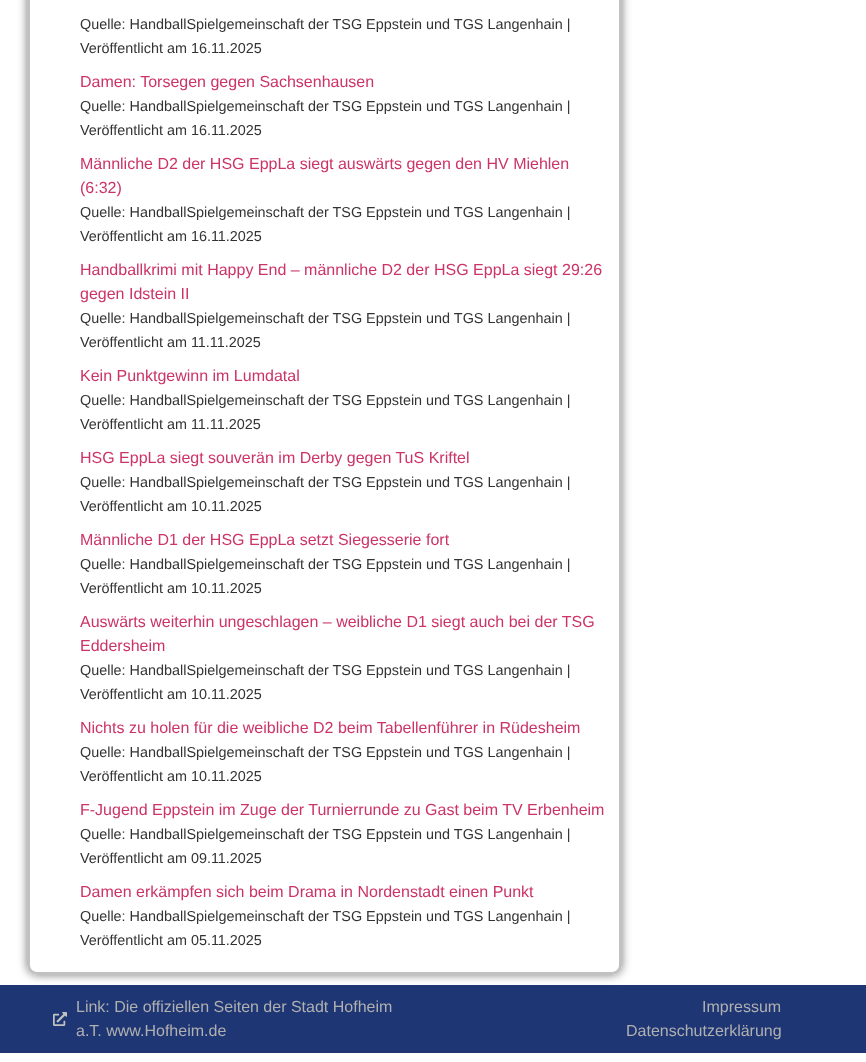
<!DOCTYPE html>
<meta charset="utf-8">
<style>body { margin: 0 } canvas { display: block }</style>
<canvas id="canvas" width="866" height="1062"></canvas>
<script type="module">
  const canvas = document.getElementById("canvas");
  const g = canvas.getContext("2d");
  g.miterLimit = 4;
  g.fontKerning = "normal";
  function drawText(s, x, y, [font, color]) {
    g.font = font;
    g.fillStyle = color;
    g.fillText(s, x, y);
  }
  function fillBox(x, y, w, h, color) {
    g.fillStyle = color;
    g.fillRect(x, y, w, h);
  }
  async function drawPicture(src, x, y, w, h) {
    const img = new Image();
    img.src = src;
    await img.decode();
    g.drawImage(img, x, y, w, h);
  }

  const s1 = ["14.4px Liberation Sans", "#333333"];
  const s2 = ["16px Liberation Sans", "#CC3366"];
  const s3 = ["16px Liberation Sans", "#B0B0B0"];

  fillBox(0, 0, 866, 1062, "#FFFFFF");
  g.save();
  g.beginPath();
  g.moveTo(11, 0);
  g.lineTo(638, 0);
  g.lineTo(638, 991);
  g.lineTo(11, 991);
  g.closePath();
  g.moveTo(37, -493);
  g.lineTo(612, -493);
  g.bezierCurveTo(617.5, -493, 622, -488.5, 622, -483);
  g.lineTo(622, 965);
  g.bezierCurveTo(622, 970.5, 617.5, 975, 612, 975);
  g.lineTo(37, 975);
  g.bezierCurveTo(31.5, 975, 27, 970.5, 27, 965);
  g.lineTo(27, -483);
  g.bezierCurveTo(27, -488.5, 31.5, -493, 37, -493);
  g.closePath();
  g.clip("evenodd");
  g.fillStyle = "rgba(0, 0, 0, 0.5)";
  g.filter = "blur(5px)";
  g.beginPath();
  g.roundRect(27, -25, 595, 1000, 10);
  g.fill();
  g.filter = "none";
  g.restore();
  g.beginPath();
  g.roundRect(28.5, -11.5, 592, 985, 8.5);
  g.strokeStyle = "#C1C1C1";
  g.lineWidth = 3;
  g.stroke();
  drawText("Quelle: HandballSpielgemeinschaft der TSG Eppstein und TGS Langenhain |", 80, 29, s1);
  drawText("Veröffentlicht am 16.11.2025", 80, 53, s1);
  drawText("Damen: Torsegen gegen Sachsenhausen", 80, 87, s2);
  drawText("Quelle: HandballSpielgemeinschaft der TSG Eppstein und TGS Langenhain |", 80, 111, s1);
  drawText("Veröffentlicht am 16.11.2025", 80, 135, s1);
  drawText("Männliche D2 der HSG EppLa siegt auswärts gegen den HV Miehlen", 80, 169, s2);
  drawText("(6:32)", 80, 193, s2);
  drawText("Quelle: HandballSpielgemeinschaft der TSG Eppstein und TGS Langenhain |", 80, 217, s1);
  drawText("Veröffentlicht am 16.11.2025", 80, 241, s1);
  drawText("Handballkrimi mit Happy End – männliche D2 der HSG EppLa siegt 29:26", 80, 275, s2);
  drawText("gegen Idstein II", 80, 299, s2);
  drawText("Quelle: HandballSpielgemeinschaft der TSG Eppstein und TGS Langenhain |", 80, 323, s1);
  drawText("Veröffentlicht am 11.11.2025", 80, 347, s1);
  drawText("Kein Punktgewinn im Lumdatal", 80, 381, s2);
  drawText("Quelle: HandballSpielgemeinschaft der TSG Eppstein und TGS Langenhain |", 80, 405, s1);
  drawText("Veröffentlicht am 11.11.2025", 80, 429, s1);
  drawText("HSG EppLa siegt souverän im Derby gegen TuS Kriftel", 80, 463, s2);
  drawText("Quelle: HandballSpielgemeinschaft der TSG Eppstein und TGS Langenhain |", 80, 487, s1);
  drawText("Veröffentlicht am 10.11.2025", 80, 511, s1);
  drawText("Männliche D1 der HSG EppLa setzt Siegesserie fort", 80, 545, s2);
  drawText("Quelle: HandballSpielgemeinschaft der TSG Eppstein und TGS Langenhain |", 80, 569, s1);
  drawText("Veröffentlicht am 10.11.2025", 80, 593, s1);
  drawText("Auswärts weiterhin ungeschlagen – weibliche D1 siegt auch bei der TSG", 80, 627, s2);
  drawText("Eddersheim", 80, 651, s2);
  drawText("Quelle: HandballSpielgemeinschaft der TSG Eppstein und TGS Langenhain |", 80, 675, s1);
  drawText("Veröffentlicht am 10.11.2025", 80, 699, s1);
  drawText("Nichts zu holen für die weibliche D2 beim Tabellenführer in Rüdesheim", 80, 733, s2);
  drawText("Quelle: HandballSpielgemeinschaft der TSG Eppstein und TGS Langenhain |", 80, 757, s1);
  drawText("Veröffentlicht am 10.11.2025", 80, 781, s1);
  drawText("F-Jugend Eppstein im Zuge der Turnierrunde zu Gast beim TV Erbenheim", 80, 815, s2);
  drawText("Quelle: HandballSpielgemeinschaft der TSG Eppstein und TGS Langenhain |", 80, 839, s1);
  drawText("Veröffentlicht am 09.11.2025", 80, 863, s1);
  drawText("Damen erkämpfen sich beim Drama in Nordenstadt einen Punkt", 80, 897, s2);
  drawText("Quelle: HandballSpielgemeinschaft der TSG Eppstein und TGS Langenhain |", 80, 921, s1);
  drawText("Veröffentlicht am 05.11.2025", 80, 945, s1);
  fillBox(0, 985, 866, 68, "#1F3675");
  await drawPicture("pic1.png", 53, 1012, 14, 14);
  drawText("Link: Die offiziellen Seiten der Stadt Hofheim", 76, 1012, s3);
  drawText("a.T. www.Hofheim.de", 76, 1036, s3);
  drawText("Impressum", 702, 1012, s3);
  drawText("Datenschutzerklärung", 626, 1036, s3);
</script>
